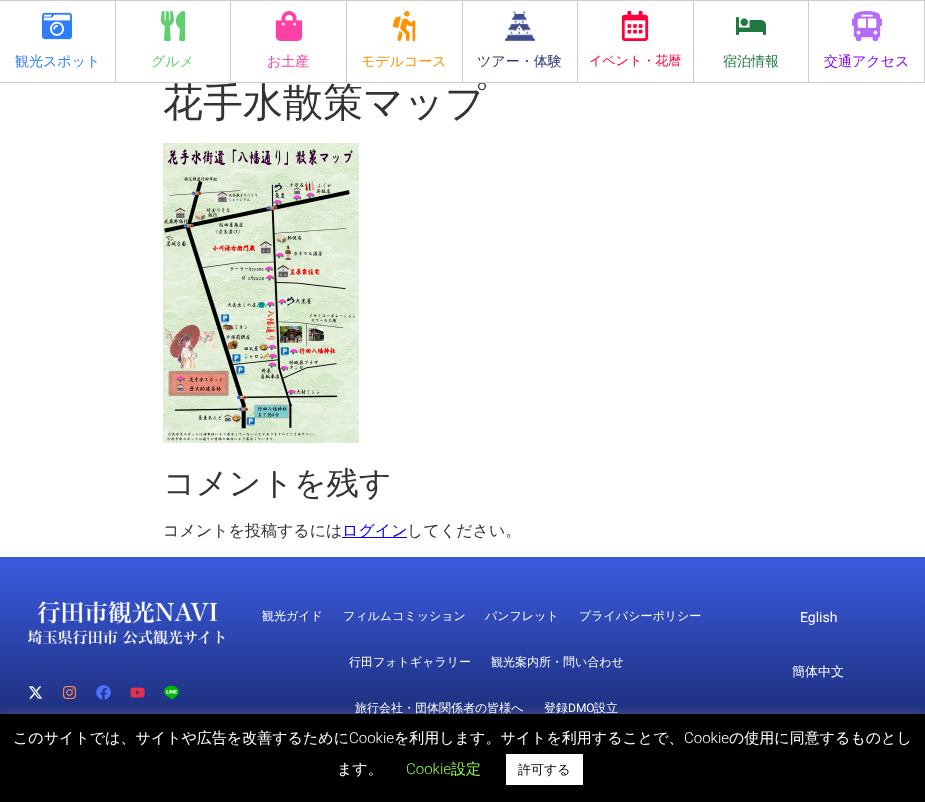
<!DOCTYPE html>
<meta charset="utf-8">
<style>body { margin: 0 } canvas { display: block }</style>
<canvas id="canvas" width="925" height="802"></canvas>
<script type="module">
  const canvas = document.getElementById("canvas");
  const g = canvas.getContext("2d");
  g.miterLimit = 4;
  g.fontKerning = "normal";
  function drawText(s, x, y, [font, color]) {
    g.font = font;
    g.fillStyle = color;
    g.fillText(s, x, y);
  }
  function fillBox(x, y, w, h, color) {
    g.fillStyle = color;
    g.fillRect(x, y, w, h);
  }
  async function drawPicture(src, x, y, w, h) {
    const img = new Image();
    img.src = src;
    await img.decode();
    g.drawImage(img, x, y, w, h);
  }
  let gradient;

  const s1 = ["500 40px WenQuanYi Zen Hei", "#333333"];
  const s2 = ["500 14px WenQuanYi Zen Hei", "#2F7DFF"];
  const s3 = ["500 14px WenQuanYi Zen Hei", "#61CE70"];
  const s4 = ["500 14px WenQuanYi Zen Hei", "#FF41A4"];
  const s5 = ["500 14px WenQuanYi Zen Hei", "#FF9200"];
  const s6 = ["500 14px WenQuanYi Zen Hei", "#2A3671"];
  const s7 = ["500 13px WenQuanYi Zen Hei", "#FF003C"];
  const s8 = ["500 14px WenQuanYi Zen Hei", "#227843"];
  const s9 = ["500 14px WenQuanYi Zen Hei", "#8900FF"];
  const s10 = ["500 32px WenQuanYi Zen Hei", "#333333"];
  const s11 = ["500 16px WenQuanYi Zen Hei", "#333333"];
  const s12 = ["500 16px WenQuanYi Zen Hei", "#0000FF"];
  const s13 = ["500 12px WenQuanYi Zen Hei", "#FFFFFF"];
  const s14 = ["12px Roboto", "#FFFFFF"];
  const s15 = ["14px Roboto", "#FFFFFF"];
  const s16 = ["500 13px WenQuanYi Zen Hei", "#FFFFFF"];
  const s17 = ["500 15px WenQuanYi Zen Hei", "#FFFFFF"];
  const s18 = ["300 15px Roboto", "#FFFFFF"];
  const s19 = ["300 15px Roboto", "#95FF3F"];
  const s20 = ["500 15px WenQuanYi Zen Hei", "#95FF3F"];
  const s21 = ["500 13px WenQuanYi Zen Hei", "#000000"];

  fillBox(0, 0, 925, 802, "#FFFFFF");
  fillBox(0, 0, 925, 1, "#CCCCCC");
  drawText("花手水散策マップ", 163, 116, s1);
  fillBox(0, 82, 925, 1, "#CCCCCC");
  fillBox(115, 1, 1, 81, "#CCCCCC");
  await drawPicture("pic1.png", 42, 12, 30, 28);
  drawText("観光スポット", 15, 66, s2);
  fillBox(230, 1, 1, 81, "#CCCCCC");
  await drawPicture("pic2.png", 160, 11, 26, 30);
  drawText("グルメ", 151, 66, s3);
  fillBox(346, 1, 1, 81, "#CCCCCC");
  await drawPicture("pic3.png", 275, 11, 28, 30);
  drawText("お土産", 267, 66, s4);
  fillBox(462, 1, 1, 81, "#CCCCCC");
  await drawPicture("pic4.png", 392, 11, 24, 30);
  drawText("モデルコース", 361, 66, s5);
  fillBox(577, 1, 1, 81, "#CCCCCC");
  await drawPicture("pic5.png", 505, 11, 30, 30);
  drawText("ツアー・体験", 477, 66, s6);
  fillBox(693, 1, 1, 81, "#CCCCCC");
  await drawPicture("pic6.png", 621, 11, 28, 30);
  drawText("イベント・花暦", 589, 65, s7);
  fillBox(808, 1, 1, 81, "#CCCCCC");
  await drawPicture("pic7.png", 736, 17, 30, 18);
  drawText("宿泊情報", 723, 66, s8);
  fillBox(924, 1, 1, 81, "#CCCCCC");
  await drawPicture("pic8.png", 852, 11, 30, 30);
  drawText("交通アクセス", 824, 66, s9);
  await drawPicture("pic9.png", 163, 143, 196, 300);
  drawText("コメントを残す", 163, 494, s10);
  drawText("コメントを投稿するには", 163, 536, s11);
  fillBox(342, 537, 65, 1, "#0000FF");
  drawText("ログイン", 342, 536, s12);
  drawText("してください。", 407, 536, s11);
  gradient = g.createLinearGradient(463, 557, 463, 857);
  gradient.addColorStop(0, "#3B5BE1");
  gradient.addColorStop(1, "#040824");
  g.fillStyle = gradient;
  g.fillRect(0, 557, 925, 157);
  await drawPicture("pic10.png", 28, 601, 197, 44);
  await drawPicture("pic11.png", 28, 686, 15, 13);
  await drawPicture("pic12.png", 63, 686, 14, 13);
  await drawPicture("pic13.png", 96, 685, 15, 15);
  await drawPicture("pic14.png", 130, 687, 15, 11);
  await drawPicture("pic15.png", 164, 685, 15, 15);
  drawText("観光ガイド", 262, 620, s13);
  drawText("フィルムコミッション", 343, 620, s13);
  drawText("パンフレット", 485, 620, s13);
  drawText("プライバシーポリシー", 579, 620, s13);
  drawText("行田フォトギャラリー", 349, 666, s13);
  drawText("観光案内所・問い合わせ", 491, 666, s13);
  drawText("旅行会社・団体関係者の皆様へ", 355, 712, s13);
  drawText("登録", 544, 712, s13);
  drawText("DMO", 568, 712, s14);
  drawText("設立", 594, 712, s13);
  drawText("Eglish", 800, 622, s15);
  drawText("簡体中文", 792, 676, s16);
  g.fillStyle = "rgba(172, 171, 171, 0.3)";
  g.filter = "blur(5px)";
  g.beginPath();
  g.rect(0, 713, 925, 88);
  g.fill();
  g.filter = "none";
  fillBox(0, 714, 925, 88, "#000000");
  drawText("このサイトでは、サイトや広告を改善するために", 13, 743, s17);
  drawText("Cookie", 349, 743, s18);
  drawText("を利用します。サイトを利用することで、", 394, 743, s17);
  drawText("Cookie", 684, 743, s18);
  drawText("の使用に同意するものとし", 729, 743, s17);
  drawText("ます。", 337, 774, s17);
  drawText("Cookie", 406, 774, s19);
  drawText("設定", 451, 774, s20);
  fillBox(506, 754, 77, 31, "#FFFFFF");
  drawText("許可する", 518, 774, s21);
</script>
